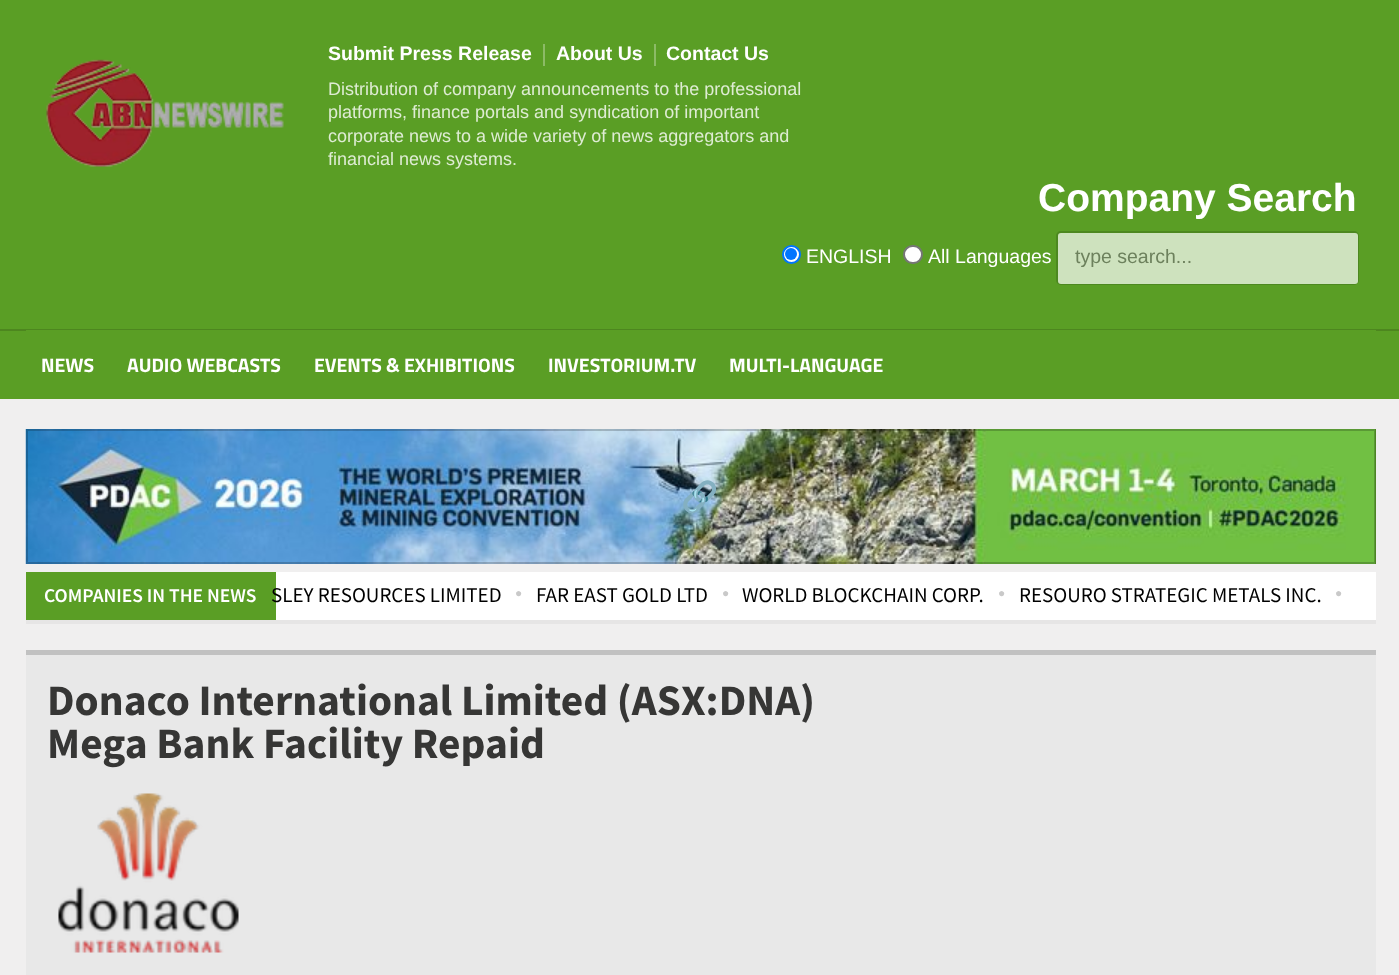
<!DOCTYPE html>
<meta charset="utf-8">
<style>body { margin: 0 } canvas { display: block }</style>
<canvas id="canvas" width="1399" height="975"></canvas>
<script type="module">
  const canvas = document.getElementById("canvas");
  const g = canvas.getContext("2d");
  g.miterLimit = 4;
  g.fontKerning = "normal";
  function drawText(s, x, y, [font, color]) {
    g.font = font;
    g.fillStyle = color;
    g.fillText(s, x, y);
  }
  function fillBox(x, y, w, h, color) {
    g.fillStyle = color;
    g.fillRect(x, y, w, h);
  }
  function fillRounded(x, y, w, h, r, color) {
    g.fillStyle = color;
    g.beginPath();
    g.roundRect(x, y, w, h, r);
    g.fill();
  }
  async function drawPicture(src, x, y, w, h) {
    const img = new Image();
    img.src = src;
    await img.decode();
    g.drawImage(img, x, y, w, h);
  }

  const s1 = ["bold 19.5px Liberation Sans", "#FFFFFF"];
  const s2 = ["18px Liberation Sans", "#DEECD3"];
  const s3 = ["bold 39px Liberation Sans", "#FFFFFF"];
  const s4 = ["19.5px Liberation Sans", "#FFFFFF"];
  const s5 = ["19.5px Liberation Sans", "#6D815D"];
  const s6 = ["bold 19.5px Titillium Web", "#FFFFFF"];
  const s7 = ["30px Noto Color Emoji", "#7798AD"];
  const s8 = ["600 19.5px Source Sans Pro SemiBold", "#FFFFFF"];
  const s9 = ["21px Source Sans Pro", "#000000"];
  const s10 = ["12px Liberation Serif", "#C9C9C9"];
  const s11 = ["bold 43.5px Source Sans Pro", "#363635"];

  fillBox(0, 0, 1399, 975, "#F0EFEF");
  fillBox(0, 0, 1399, 399, "#5A9E25");
  await drawPicture("pic1.png", 46, 59, 238, 108);
  drawText("Submit Press Release", 328, 60, s1);
  fillBox(543, 44, 2, 22, "#8CBB66");
  drawText("About Us", 556, 60, s1);
  fillBox(654, 44, 2, 22, "#8CBB66");
  drawText("Contact Us", 666, 60, s1);
  drawText("Distribution of company announcements to the professional", 328, 95, s2);
  drawText("platforms, finance portals and syndication of important", 328, 118, s2);
  drawText("corporate news to a wide variety of news aggregators and", 328, 142, s2);
  drawText("financial news systems.", 328, 165, s2);
  drawText("Company Search", 1038, 211, s3);
  g.beginPath();
  g.arc(791.5, 254.5, 8.5, 0, Math.PI * 2);
  g.fill();
  g.strokeStyle = "#0075FF";
  g.lineWidth = 2;
  g.stroke();
  g.fillStyle = "#0075FF";
  g.beginPath();
  g.arc(791, 254, 6, 0, Math.PI * 2);
  g.fill();
  drawText("ENGLISH", 806, 263, s4);
  g.beginPath();
  g.roundRect(904, 246, 18, 17, 8.5);
  g.fill();
  g.strokeStyle = "#767676";
  g.stroke();
  drawText("All Languages", 928, 263, s4);
  g.beginPath();
  g.roundRect(1057, 232, 301, 52, 4);
  g.strokeStyle = "#4D8820";
  g.stroke();
  fillRounded(1058, 233, 300, 51, 3, "#CEE2BE");
  drawText("type search...", 1075, 263, s5);
  fillBox(0, 329, 1399, 2, "#4D861F");
  fillBox(26, 330, 1350, 1, "#5A9E25");
  drawText("NEWS", 41, 372, s6);
  drawText("AUDIO WEBCASTS", 127, 372, s6);
  drawText("EVENTS & EXHIBITIONS", 314, 372, s6);
  drawText("INVESTORIUM.TV", 548, 372, s6);
  drawText("MULTI-LANGUAGE", 729, 372, s6);
  fillBox(1375, 429, 1, 135, "#5A9E25");
  await drawPicture("pic2.png", 25, 429, 1351, 135);
  g.strokeStyle = "rgba(0, 0, 0, 0.2)";
  g.strokeRect(27, 430, 1348, 133);
  drawText("🔗", 681, 507, s7);
  g.fillStyle = "#E6E5E5";
  g.beginPath();
  g.moveTo(26, 620);
  g.lineTo(26, 624);
  g.lineTo(1376, 624);
  g.lineTo(1376, 576);
  g.lineTo(1376, 620);
  g.closePath();
  g.fill();
  fillBox(276, 572, 1070, 48, "#FFFFFF");
  fillBox(26, 655, 1350, 320, "#E8E8E8");
  fillBox(26, 650, 1350, 5, "#C1C1C1");
  g.save();
  g.beginPath();
  g.rect(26, 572, 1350, 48);
  g.clip();
  g.fillStyle = "#FFFFFF";
  g.filter = "blur(15px)";
  g.beginPath();
  g.rect(1331, 572, 30, 48);
  g.fill();
  g.filter = "none";
  g.restore();
  fillBox(1346, 572, 30, 48, "#FFFFFF");
  fillBox(26, 572, 250, 48, "#5A9E25");
  drawText("COMPANIES IN THE NEWS", 44, 602, s8);
  drawText("SLEY RESOURCES LIMITED", 271, 602, s9);
  drawText("●", 515, 597, s10);
  drawText("FAR EAST GOLD LTD", 536, 602, s9);
  drawText("●", 722, 597, s10);
  drawText("WORLD BLOCKCHAIN CORP.", 742, 602, s9);
  drawText("●", 998, 597, s10);
  drawText("RESOURO STRATEGIC METALS INC.", 1019, 602, s9);
  drawText("●", 1335, 597, s10);
  drawText("Donaco International Limited (ASX:DNA)", 47, 715, s11);
  drawText("Mega Bank Facility Repaid", 47, 758, s11);
  await drawPicture("pic3.png", 58, 793, 181, 160);
</script>
